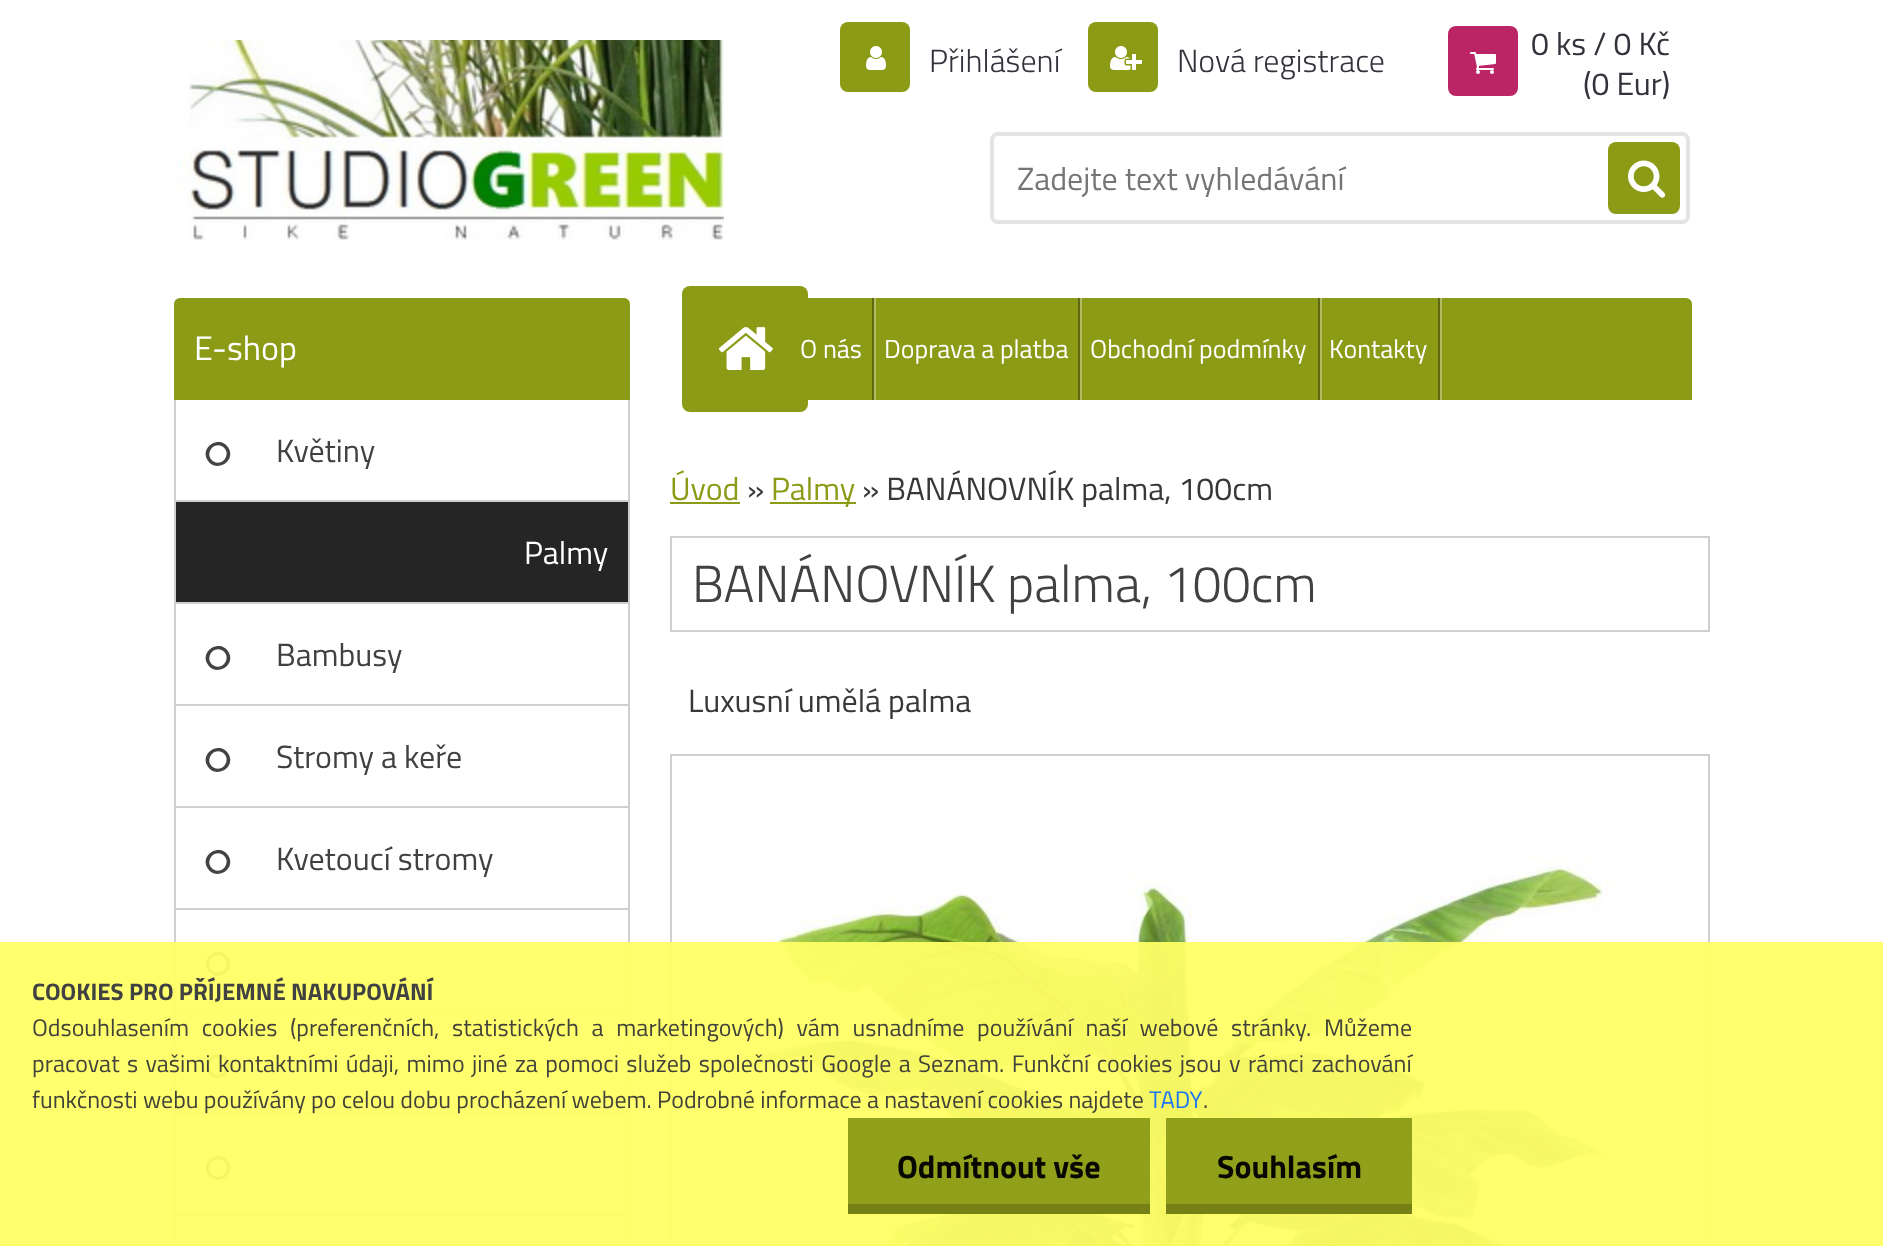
<!DOCTYPE html>
<meta charset="utf-8">
<style>body { margin: 0 } canvas { display: block }</style>
<canvas id="canvas" width="1883" height="1246"></canvas>
<script type="module">
  const canvas = document.getElementById("canvas");
  const g = canvas.getContext("2d");
  g.miterLimit = 4;
  g.fontKerning = "normal";
  function drawText(s, x, y, [font, color]) {
    g.font = font;
    g.fillStyle = color;
    g.fillText(s, x, y);
  }
  function fillBox(x, y, w, h, color) {
    g.fillStyle = color;
    g.fillRect(x, y, w, h);
  }
  function fillRounded(x, y, w, h, r, color) {
    g.fillStyle = color;
    g.beginPath();
    g.roundRect(x, y, w, h, r);
    g.fill();
  }
  async function drawPicture(src, x, y, w, h) {
    const img = new Image();
    img.src = src;
    await img.decode();
    g.drawImage(img, x, y, w, h);
  }

  const s1 = ["300 32px Titillium Web", "#32333B"];
  const s2 = ["32px Titillium Web", "#32333B"];
  const s3 = ["34px Titillium Web", "#FFFFFF"];
  const s4 = ["32px Titillium Web", "#414141"];
  const s5 = ["32px Titillium Web", "#FFFFFF"];
  const s6 = ["32px Titillium Web", "#8B9B16"];
  const s7 = ["32px Titillium Web", "#383838"];
  const s8 = ["300 52px Titillium Web", "#414141"];
  const s9 = ["26px Titillium Web", "#FFFFFF"];
  const s10 = ["32px Titillium Web", "#757575"];
  const s11 = ["bold 24px Titillium Web", "#414141"];
  const s12 = ["24px Titillium Web", "#42423B"];
  const s13 = ["24px Titillium Web", "#1975F5"];
  const s14 = ["bold 32px Titillium Web", "#070801"];

  fillBox(0, 0, 1883, 1246, "#FFFFFF");
  fillRounded(840, 22, 70, 70, 8, "#8B9B16");
  await drawPicture("pic1.png", 866, 46, 20, 24);
  drawText("Přihlášení", 929, 72, s1);
  fillRounded(1088, 22, 70, 70, 8, "#8B9B16");
  await drawPicture("pic2.png", 1110, 46, 32, 24);
  drawText("Nová registrace", 1177, 72, s1);
  fillRounded(1448, 26, 70, 70, 8, "#BC2565");
  await drawPicture("pic3.png", 1470, 52, 26, 22);
  drawText("0 ks / 0 Kč", 1531, 55, s2);
  drawText("(0 Eur)", 1583, 95, s2);
  g.fillStyle = "#8B9B16";
  g.beginPath();
  g.roundRect(174, 298, 456, 102, [6, 6, 0, 0]);
  g.fill();
  drawText("E-shop", 194, 360, s3);
  fillBox(628, 400, 2, 846, "#CFCFCF");
  fillBox(174, 500, 456, 2, "#CFCFCF");
  fillBox(174, 400, 2, 102, "#CFCFCF");
  g.fillStyle = "#454242";
  g.beginPath();
  g.moveTo(222.5, 446.5);
  g.bezierCurveTo(212.5, 441, 204, 455.5, 213.5, 461.5);
  g.bezierCurveTo(223.5, 467, 232, 452.5, 222.5, 446.5);
  g.closePath();
  g.moveTo(228.5, 448);
  g.bezierCurveTo(236.5, 461.5, 215.5, 473.5, 207.5, 460);
  g.bezierCurveTo(199.5, 446.5, 220.5, 434.5, 228.5, 448);
  g.closePath();
  g.fill();
  drawText("Květiny", 276, 462, s4);
  fillBox(176, 502, 452, 100, "#252525");
  fillBox(174, 602, 456, 2, "#CFCFCF");
  fillBox(174, 502, 2, 102, "#CFCFCF");
  drawText("Palmy", 524, 564, s5);
  fillBox(174, 704, 456, 2, "#CFCFCF");
  fillBox(174, 604, 2, 102, "#CFCFCF");
  g.fillStyle = "#454242";
  g.beginPath();
  g.moveTo(222.5, 650.5);
  g.bezierCurveTo(212.5, 645, 204, 659.5, 213.5, 665.5);
  g.bezierCurveTo(223.5, 671, 232, 656.5, 222.5, 650.5);
  g.closePath();
  g.moveTo(228.5, 652);
  g.bezierCurveTo(236.5, 665.5, 215.5, 677.5, 207.5, 664);
  g.bezierCurveTo(199.5, 650.5, 220.5, 638.5, 228.5, 652);
  g.closePath();
  g.fill();
  drawText("Bambusy", 276, 666, s4);
  fillBox(174, 806, 456, 2, "#CFCFCF");
  fillBox(174, 706, 2, 102, "#CFCFCF");
  g.fillStyle = "#454242";
  g.beginPath();
  g.moveTo(222.5, 752.5);
  g.bezierCurveTo(212.5, 747, 204, 761.5, 213.5, 767.5);
  g.bezierCurveTo(223.5, 773, 232, 758.5, 222.5, 752.5);
  g.closePath();
  g.moveTo(228.5, 754);
  g.bezierCurveTo(236.5, 767.5, 215.5, 779.5, 207.5, 766);
  g.bezierCurveTo(199.5, 752.5, 220.5, 740.5, 228.5, 754);
  g.closePath();
  g.fill();
  drawText("Stromy a keře", 276, 768, s4);
  fillBox(174, 908, 456, 2, "#CFCFCF");
  fillBox(174, 808, 2, 102, "#CFCFCF");
  g.fillStyle = "#454242";
  g.beginPath();
  g.moveTo(222.5, 854.5);
  g.bezierCurveTo(212.5, 849, 204, 863.5, 213.5, 869.5);
  g.bezierCurveTo(223.5, 875, 232, 860.5, 222.5, 854.5);
  g.closePath();
  g.moveTo(228.5, 856);
  g.bezierCurveTo(236.5, 869.5, 215.5, 881.5, 207.5, 868);
  g.bezierCurveTo(199.5, 854.5, 220.5, 842.5, 228.5, 856);
  g.closePath();
  g.fill();
  drawText("Kvetoucí stromy", 276, 870, s4);
  fillBox(174, 1010, 456, 2, "#CFCFCF");
  fillBox(174, 910, 2, 102, "#CFCFCF");
  g.fillStyle = "#454242";
  g.beginPath();
  g.moveTo(222.5, 956.5);
  g.bezierCurveTo(212.5, 951, 204, 965.5, 213.5, 971.5);
  g.bezierCurveTo(223.5, 977, 232, 962.5, 222.5, 956.5);
  g.closePath();
  g.moveTo(228.5, 958);
  g.bezierCurveTo(236.5, 971.5, 215.5, 983.5, 207.5, 970);
  g.bezierCurveTo(199.5, 956.5, 220.5, 944.5, 228.5, 958);
  g.closePath();
  g.fill();
  fillBox(174, 1112, 456, 2, "#CFCFCF");
  fillBox(174, 1012, 2, 102, "#CFCFCF");
  g.fillStyle = "#454242";
  g.beginPath();
  g.moveTo(222.5, 1058.5);
  g.bezierCurveTo(212.5, 1053, 204, 1067.5, 213.5, 1073.5);
  g.bezierCurveTo(223.5, 1079, 232, 1064.5, 222.5, 1058.5);
  g.closePath();
  g.moveTo(228.5, 1060);
  g.bezierCurveTo(236.5, 1073.5, 215.5, 1085.5, 207.5, 1072);
  g.bezierCurveTo(199.5, 1058.5, 220.5, 1046.5, 228.5, 1060);
  g.closePath();
  g.fill();
  fillBox(174, 1214, 456, 2, "#CFCFCF");
  fillBox(174, 1114, 2, 132, "#CFCFCF");
  g.fillStyle = "#454242";
  g.beginPath();
  g.moveTo(222.5, 1160.5);
  g.bezierCurveTo(212.5, 1155, 204, 1169.5, 213.5, 1175.5);
  g.bezierCurveTo(223.5, 1181, 232, 1166.5, 222.5, 1160.5);
  g.closePath();
  g.moveTo(228.5, 1162);
  g.bezierCurveTo(236.5, 1175.5, 215.5, 1187.5, 207.5, 1174);
  g.bezierCurveTo(199.5, 1160.5, 220.5, 1148.5, 228.5, 1162);
  g.closePath();
  g.fill();
  drawText("Úvod", 670, 500, s6);
  fillBox(670, 502, 70, 2, "#8B9B16");
  drawText("»", 747, 500, s7);
  fillBox(770, 502, 86, 2, "#8B9B16");
  drawText("Palmy", 771, 500, s6);
  drawText("» BANÁNOVNÍK palma, 100cm", 862, 500, s7);
  g.strokeStyle = "#CFCFCF";
  g.lineWidth = 2;
  g.strokeRect(671, 537, 1038, 94);
  drawText("BANÁNOVNÍK palma, 100cm", 692, 602, s8);
  drawText("Luxusní umělá palma", 688, 712, s7);
  g.strokeRect(671, 755, 1038, 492);
  await drawPicture("pic4.png", 733, 856, 886, 390);
  g.fillStyle = "#8B9B16";
  g.beginPath();
  g.roundRect(686, 298, 1006, 102, [6, 6, 0, 0]);
  g.fill();
  fillRounded(682, 286, 126, 126, 8, "#8B9B16");
  await drawPicture("pic5.png", 718, 327, 55, 43);
  fillBox(874, 298, 2, 102, "#B1BC63");
  fillBox(872, 298, 2, 102, "#5D680F");
  drawText("O nás", 800, 358, s9);
  fillBox(1080, 298, 2, 102, "#B1BC63");
  fillBox(1078, 298, 2, 102, "#5D680F");
  drawText("Doprava a platba", 884, 358, s9);
  fillBox(1320, 298, 2, 102, "#B1BC63");
  fillBox(1318, 298, 2, 102, "#5D680F");
  drawText("Obchodní podmínky", 1090, 358, s9);
  fillBox(1440, 298, 2, 102, "#B1BC63");
  fillBox(1438, 298, 2, 102, "#5D680F");
  drawText("Kontakty", 1329, 358, s9);
  await drawPicture("pic6.png", 174, 40, 550, 200);
  g.beginPath();
  g.roundRect(992, 134, 696, 88, 6);
  g.strokeStyle = "#E4E4E4";
  g.lineWidth = 4;
  g.stroke();
  drawText("Zadejte text vyhledávání", 1017, 190, s10);
  fillRounded(1608, 142, 72, 72, 8, "#8B9B16");
  await drawPicture("pic7.png", 1628, 160, 38, 38);
  fillBox(0, 942, 1883, 304, "rgba(255, 255, 102, 0.95)");
  drawText("COOKIES PRO PŘÍJEMNÉ NAKUPOVÁNÍ", 32, 1000, s11);
  g.wordSpacing = "7.4px";
  drawText("Odsouhlasením cookies (preferenčních, statistických a marketingových) vám usnadníme používání naší webové stránky. Můžeme", 32, 1036, s12);
  g.wordSpacing = "2.1px";
  drawText("pracovat s vašimi kontaktními údaji, mimo jiné za pomoci služeb společnosti Google a Seznam. Funkční cookies jsou v rámci zachování", 32, 1072, s12);
  g.wordSpacing = "0px";
  drawText("funkčnosti webu používány po celou dobu procházení webem. Podrobné informace a nastavení cookies najdete", 32, 1108, s12);
  drawText("TADY", 1149, 1108, s13);
  drawText(".", 1203, 1108, s12);
  fillBox(848, 1118, 302, 86, "rgba(139, 155, 22, 0.95)");
  fillBox(848, 1204, 302, 10, "#758115");
  drawText("Odmítnout vše", 897, 1178, s14);
  fillBox(1166, 1118, 246, 86, "rgba(139, 155, 22, 0.95)");
  fillBox(1166, 1204, 246, 10, "#758115");
  drawText("Souhlasím", 1217, 1178, s14);
</script>
